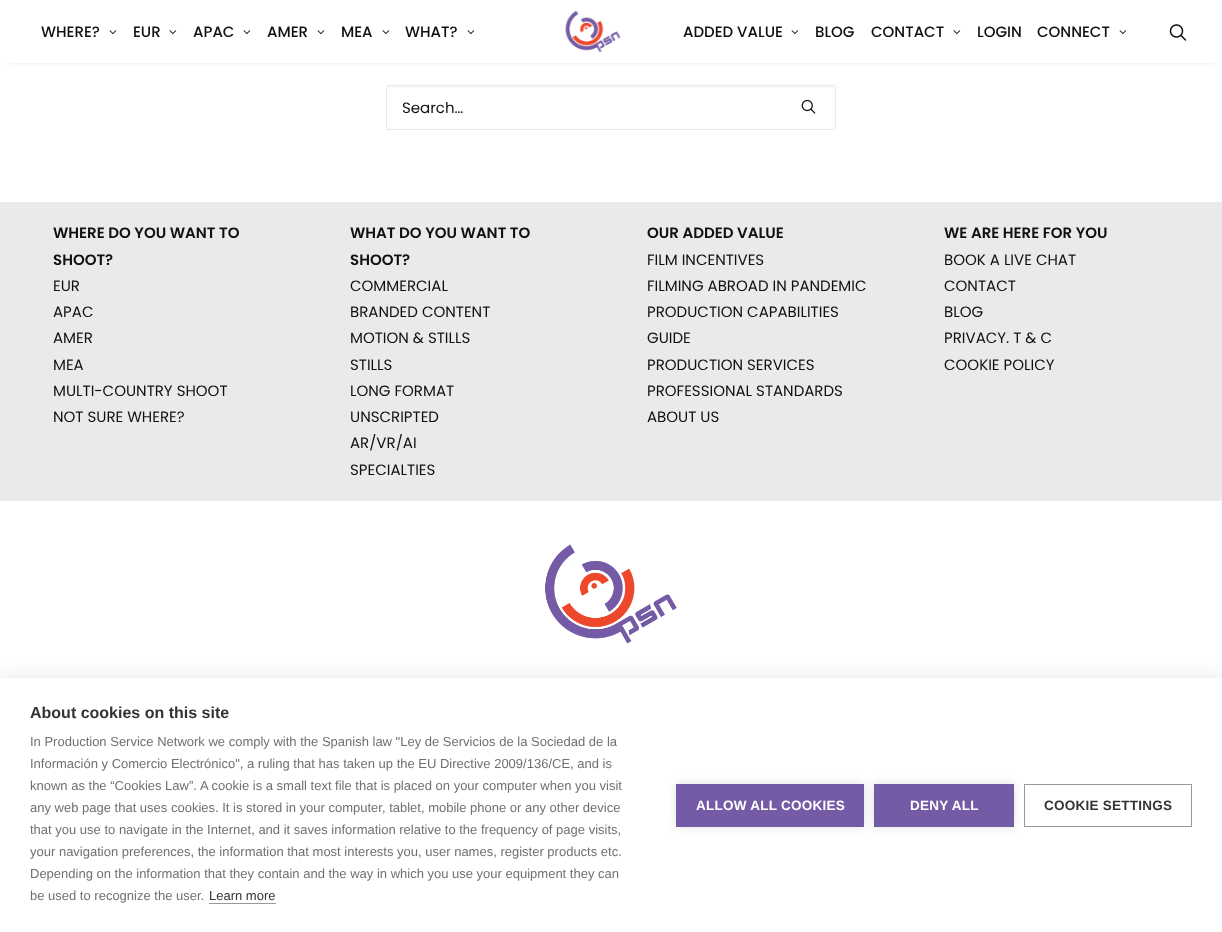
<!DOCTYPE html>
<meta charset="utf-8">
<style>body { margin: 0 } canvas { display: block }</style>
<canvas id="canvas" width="1222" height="932"></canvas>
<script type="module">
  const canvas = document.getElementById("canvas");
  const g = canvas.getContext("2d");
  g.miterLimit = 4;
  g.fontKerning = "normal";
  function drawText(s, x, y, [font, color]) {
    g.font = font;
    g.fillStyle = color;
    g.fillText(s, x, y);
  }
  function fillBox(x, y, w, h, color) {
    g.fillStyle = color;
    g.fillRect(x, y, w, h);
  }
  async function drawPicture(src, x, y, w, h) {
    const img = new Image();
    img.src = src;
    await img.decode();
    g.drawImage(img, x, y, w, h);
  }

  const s1 = ["500 15px Poppins", "#101010"];
  const s2 = ["15px Poppins", "#101010"];
  const s3 = ["600 15px Poppins", "#101010"];
  const s4 = ["bold 16px Liberation Sans", "#333333"];
  const s5 = ["13px Liberation Sans", "#707070"];
  const s6 = ["13px Liberation Sans", "#333333"];
  const s7 = ["bold 13.5px Liberation Sans", "#FFFFFF"];
  const s8 = ["bold 13.5px Liberation Sans", "#333333"];

  fillBox(0, 0, 1222, 932, "#FFFFFF");
  g.fillStyle = "rgba(0, 0, 0, 0.6)";
  g.filter = "blur(5px)";
  g.beginPath();
  g.rect(9, 14, 1204, 43);
  g.fill();
  g.filter = "none";
  fillBox(0, 3, 1222, 60, "#FFFFFF");
  drawText("WHERE?", 41, 37, s1);
  await drawPicture("pic1.png", 109, 30, 8, 5);
  drawText("EUR", 133, 37, s1);
  await drawPicture("pic1.png", 169, 30, 8, 5);
  drawText("APAC", 193, 37, s1);
  await drawPicture("pic1.png", 243, 30, 8, 5);
  drawText("AMER", 267, 37, s1);
  await drawPicture("pic1.png", 317, 30, 8, 5);
  drawText("MEA", 341, 37, s1);
  await drawPicture("pic1.png", 382, 30, 8, 5);
  drawText("WHAT?", 405, 37, s1);
  await drawPicture("pic1.png", 467, 30, 8, 5);
  await drawPicture("pic2.png", 565, 10, 56, 43);
  drawText("ADDED VALUE", 683, 37, s1);
  await drawPicture("pic1.png", 791, 30, 8, 5);
  drawText("BLOG", 815, 37, s1);
  drawText("CONTACT", 871, 37, s1);
  await drawPicture("pic1.png", 953, 30, 8, 5);
  drawText("LOGIN", 977, 37, s1);
  drawText("CONNECT", 1037, 37, s1);
  await drawPicture("pic1.png", 1119, 30, 8, 5);
  await drawPicture("pic3.png", 1169, 24, 18, 17);
  g.fillStyle = "#F9F9F9";
  g.beginPath();
  g.moveTo(388, 88);
  g.lineTo(834, 88);
  g.bezierCurveTo(835, 88, 835, 88, 835, 89);
  g.bezierCurveTo(835, 88, 835, 86, 834, 86);
  g.lineTo(388, 86);
  g.lineTo(387, 86);
  g.lineTo(387, 89);
  g.bezierCurveTo(387, 88, 387, 88, 388, 88);
  g.closePath();
  g.fill();
  g.beginPath();
  g.roundRect(386.5, 85.5, 449, 44, 1.5);
  g.strokeStyle = "#EAEAEA";
  g.stroke();
  drawText("Search…", 402, 113, s2);
  await drawPicture("pic4.png", 801, 99, 15, 15);
  fillBox(0, 202, 1222, 299, "#EAEAEA");
  drawText("WHERE DO YOU WANT TO", 53, 238, s3);
  drawText("SHOOT?", 53, 265, s3);
  drawText("EUR", 53, 291, s2);
  drawText("APAC", 53, 317, s2);
  drawText("AMER", 53, 343, s2);
  drawText("MEA", 53, 370, s2);
  drawText("MULTI-COUNTRY SHOOT", 53, 396, s2);
  drawText("NOT SURE WHERE?", 53, 422, s2);
  drawText("WHAT DO YOU WANT TO", 350, 238, s3);
  drawText("SHOOT?", 350, 265, s3);
  drawText("COMMERCIAL", 350, 291, s2);
  drawText("BRANDED CONTENT", 350, 317, s2);
  drawText("MOTION & STILLS", 350, 343, s2);
  drawText("STILLS", 350, 370, s2);
  drawText("LONG FORMAT", 350, 396, s2);
  drawText("UNSCRIPTED", 350, 422, s2);
  drawText("AR/VR/AI", 350, 448, s2);
  drawText("SPECIALTIES", 350, 475, s2);
  drawText("OUR ADDED VALUE", 647, 238, s3);
  drawText("FILM INCENTIVES", 647, 265, s2);
  drawText("FILMING ABROAD IN PANDEMIC", 647, 291, s2);
  drawText("PRODUCTION CAPABILITIES", 647, 317, s2);
  drawText("GUIDE", 647, 343, s2);
  drawText("PRODUCTION SERVICES", 647, 370, s2);
  drawText("PROFESSIONAL STANDARDS", 647, 396, s2);
  drawText("ABOUT US", 647, 422, s2);
  drawText("WE ARE HERE FOR YOU", 944, 238, s3);
  drawText("BOOK A LIVE CHAT", 944, 265, s2);
  drawText("CONTACT", 944, 291, s2);
  drawText("BLOG", 944, 317, s2);
  drawText("PRIVACY. T & C", 944, 343, s2);
  drawText("COOKIE POLICY", 944, 370, s2);
  await drawPicture("pic5.png", 545, 544, 132, 100);
  g.fillStyle = "rgba(0, 0, 0, 0.1)";
  g.filter = "blur(10px)";
  g.beginPath();
  g.rect(0, 678, 1222, 254);
  g.fill();
  g.filter = "none";
  fillBox(0, 678, 1222, 254, "#FFFFFF");
  drawText("About cookies on this site", 30, 718, s4);
  drawText("In Production Service Network we comply with the Spanish law \"Ley de Servicios de la Sociedad de la", 30, 746, s5);
  drawText("Información y Comercio Electrónico\", a ruling that has taken up the EU Directive 2009/136/CE, and is", 30, 768, s5);
  drawText("known as the “Cookies Law”.", 30, 790, s5);
  drawText("A cookie is a small text file that is placed on your computer when you visit", 200, 790, s5);
  drawText("any web page that uses cookies. It is stored in your computer, tablet, mobile phone or any other device", 30, 812, s5);
  drawText("that you use to navigate in the Internet, and it saves information relative to the frequency of page visits,", 30, 834, s5);
  drawText("your navigation preferences, the information that most interests you, user names, register products etc.", 30, 856, s5);
  drawText("Depending on the information that they contain and the way in which you use your equipment they can", 30, 878, s5);
  drawText("be used to recognize the user.", 30, 900, s5);
  drawText("Learn more", 209, 900, s6);
  fillBox(209, 903, 67, 1, "#999999");
  g.fillStyle = "rgba(0, 0, 0, 0.12)";
  g.filter = "blur(5px)";
  g.beginPath();
  g.rect(676, 784, 188, 43);
  g.fill();
  g.filter = "none";
  fillBox(676, 784, 188, 43, "#755AA5");
  g.letterSpacing = "0.25px";
  drawText("ALLOW ALL COOKIES", 696, 810, s7);
  g.fillStyle = "rgba(0, 0, 0, 0.12)";
  g.filter = "blur(5px)";
  g.beginPath();
  g.rect(874, 784, 140, 43);
  g.fill();
  g.filter = "none";
  fillBox(874, 784, 140, 43, "#755AA5");
  drawText("DENY ALL", 910, 810, s7);
  g.strokeStyle = "#999999";
  g.strokeRect(1024.5, 784.5, 167, 42);
  drawText("COOKIE SETTINGS", 1044, 810, s8);
</script>
